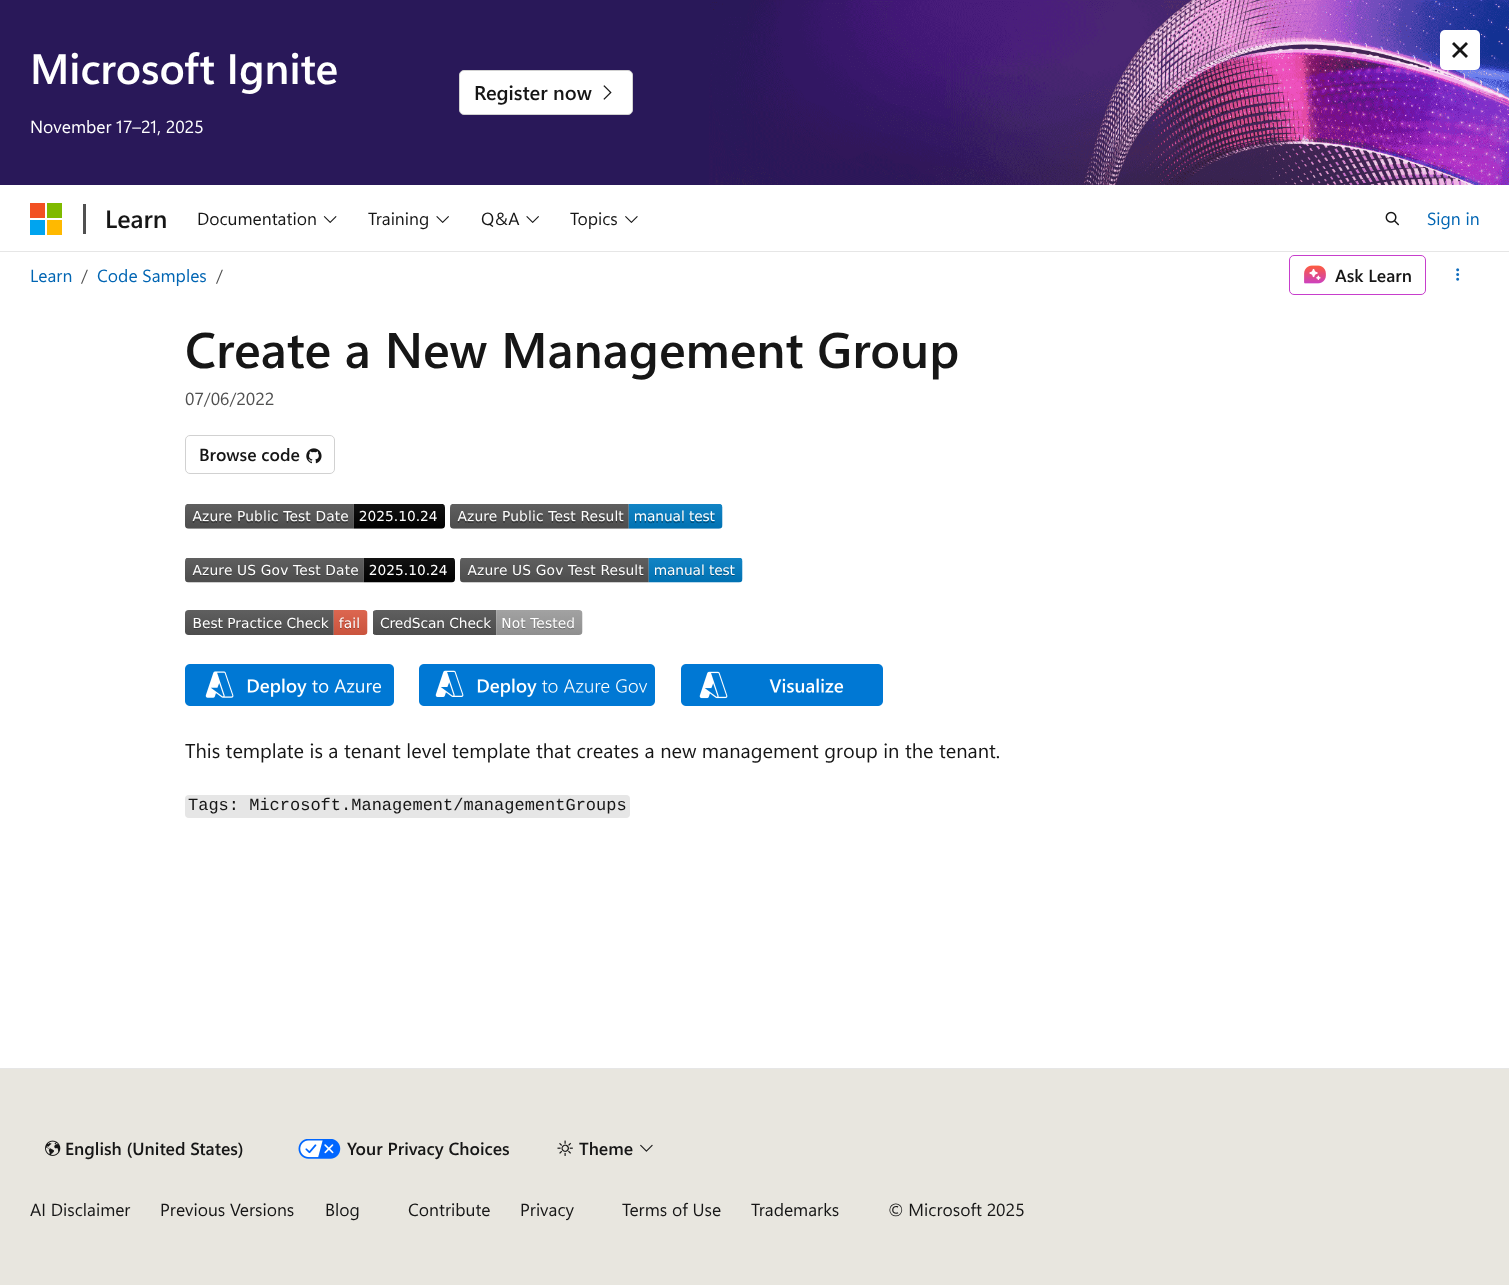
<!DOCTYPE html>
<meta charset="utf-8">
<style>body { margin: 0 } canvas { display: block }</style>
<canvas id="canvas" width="1509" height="1285"></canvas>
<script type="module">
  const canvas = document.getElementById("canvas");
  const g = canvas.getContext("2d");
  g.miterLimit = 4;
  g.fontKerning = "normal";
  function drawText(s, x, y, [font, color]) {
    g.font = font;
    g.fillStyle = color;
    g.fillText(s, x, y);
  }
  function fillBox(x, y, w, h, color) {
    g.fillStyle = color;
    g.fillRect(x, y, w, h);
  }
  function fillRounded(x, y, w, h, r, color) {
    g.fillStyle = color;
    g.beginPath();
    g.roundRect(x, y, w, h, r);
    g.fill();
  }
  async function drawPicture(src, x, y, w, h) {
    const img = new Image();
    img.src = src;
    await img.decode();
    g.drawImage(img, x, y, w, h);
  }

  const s1 = ["600 42.5px Segoe UI", "#FFFFFF"];
  const s2 = ["17.5px Segoe UI", "#FFFFFF"];
  const s3 = ["600 20px Segoe UI", "#161616"];
  const s4 = ["600 25px Segoe UI", "#161616"];
  const s5 = ["17.5px Segoe UI", "#161616"];
  const s6 = ["17.5px Segoe UI", "#0065B3"];
  const s7 = ["17.5px Segoe UI", "#505050"];
  const s8 = ["600 17.5px Segoe UI", "#161616"];
  const s9 = ["600 50px Segoe UI", "#161616"];
  const s10 = ["20px Segoe UI", "#161616"];
  const s11 = ["17px Liberation Mono", "#161616"];

  fillBox(0, 0, 1509, 1285, "#FFFFFF");
  fillBox(0, 0, 709, 185, "#291859");
  await drawPicture("pic1.png", 709, 0, 800, 185);
  drawText("Microsoft Ignite", 30, 84, s1);
  drawText("November 17–21, 2025", 30, 133, s2);
  g.beginPath();
  g.roundRect(459.5, 70.5, 173, 44, 4.5);
  g.fill();
  g.strokeStyle = "#D1D1D1";
  g.stroke();
  drawText("Register now", 474, 100, s3);
  await drawPicture("pic2.png", 603, 85, 9, 15);
  fillRounded(1440, 30, 40, 40, 5, "#FFFFFF");
  g.fillStyle = "#161616";
  g.beginPath();
  g.moveTo(1454, 42);
  g.lineTo(1468, 56);
  g.lineTo(1466, 58);
  g.lineTo(1452, 44);
  g.closePath();
  g.fill();
  g.beginPath();
  g.moveTo(1466, 42);
  g.lineTo(1468, 44);
  g.lineTo(1454, 58);
  g.lineTo(1452, 56);
  g.closePath();
  g.fill();
  fillBox(0, 251, 1509, 1, "#E6E6E6");
  fillBox(30, 203, 15, 15, "#F25022");
  fillBox(47, 203, 15, 15, "#7FBA00");
  fillBox(30, 220, 15, 15, "#00A4EF");
  fillBox(47, 220, 15, 15, "#FFB900");
  fillBox(83, 204, 3, 30, "#505050");
  drawText("Learn", 105, 228, s4);
  drawText("Documentation", 197, 225, s5);
  await drawPicture("pic3.png", 323, 216, 14, 7);
  drawText("Training", 368, 225, s5);
  await drawPicture("pic4.png", 436, 216, 13, 7);
  drawText("Q&A", 481, 225, s5);
  await drawPicture("pic4.png", 526, 216, 13, 7);
  drawText("Topics", 570, 225, s5);
  await drawPicture("pic5.png", 625, 216, 13, 7);
  await drawPicture("pic6.png", 1385, 211, 14, 15);
  drawText("Sign in", 1427, 225, s6);
  drawText("Learn", 30, 282, s6);
  drawText("/", 81, 282, s7);
  drawText("Code Samples", 97, 282, s6);
  drawText("/", 216, 282, s7);
  g.beginPath();
  g.roundRect(1289.5, 255.5, 136, 39, 4.5);
  g.strokeStyle = "#C73ECC";
  g.stroke();
  await drawPicture("pic7.png", 1304, 265, 22, 19);
  drawText("Ask Learn", 1335, 282, s8);
  await drawPicture("pic8.png", 1456, 268, 4, 13);
  drawText("Create a New Management Group", 185, 368, s9);
  drawText("07/06/2022", 185, 405, s7);
  g.beginPath();
  g.roundRect(185.5, 435.5, 149, 38, 4.5);
  g.strokeStyle = "#D1D1D1";
  g.stroke();
  drawText("Browse code", 199, 461, s8);
  await drawPicture("pic9.png", 306, 448, 16, 16);
  await drawPicture("pic10.png", 185, 504, 260, 25);
  await drawPicture("pic11.png", 450, 504, 273, 25);
  await drawPicture("pic12.png", 185, 558, 270, 25);
  await drawPicture("pic13.png", 460, 558, 283, 25);
  await drawPicture("pic14.png", 185, 610, 183, 25);
  await drawPicture("pic15.png", 373, 610, 210, 25);
  await drawPicture("pic16.png", 185, 664, 209, 42);
  await drawPicture("pic17.png", 419, 664, 236, 42);
  await drawPicture("pic18.png", 681, 664, 202, 42);
  drawText("This template is a tenant level template that creates a new management group in the tenant.", 185, 758, s10);
  fillRounded(185, 795, 445, 23, 4, "#E6E6E6");
  drawText("Tags: Microsoft.Management/managementGroups", 188, 810, s11);
  fillBox(0, 1069, 1509, 216, "#E8E6DF");
  fillBox(0, 1068, 1509, 1, "#E6E6E6");
  await drawPicture("pic19.png", 45, 1140, 16, 16);
  drawText("English (United States)", 65, 1155, s8);
  await drawPicture("pic20.png", 298, 1139, 43, 20);
  drawText("Your Privacy Choices", 347, 1155, s8);
  await drawPicture("pic21.png", 557, 1140, 16, 16);
  drawText("Theme", 579, 1155, s8);
  await drawPicture("pic22.png", 640, 1144, 13, 8);
  drawText("AI Disclaimer", 30, 1216, s5);
  drawText("Previous Versions", 160, 1216, s5);
  drawText("Blog", 325, 1216, s5);
  drawText("Contribute", 408, 1216, s5);
  drawText("Privacy", 520, 1216, s5);
  drawText("Terms of Use", 622, 1216, s5);
  drawText("Trademarks", 751, 1216, s5);
  drawText("© Microsoft 2025", 888, 1216, s5);
</script>
